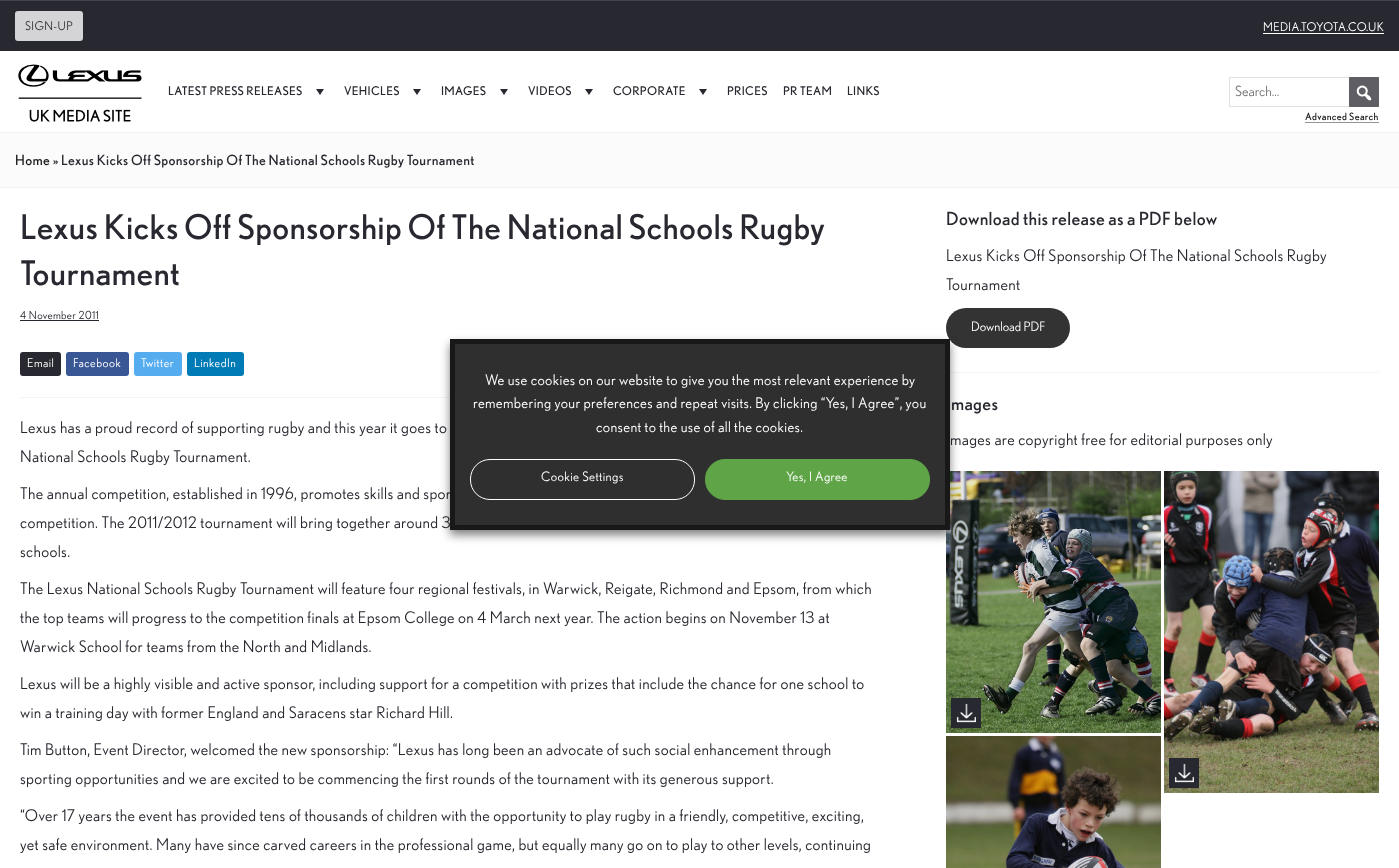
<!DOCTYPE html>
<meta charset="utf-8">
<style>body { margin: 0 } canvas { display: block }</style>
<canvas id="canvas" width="1399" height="868"></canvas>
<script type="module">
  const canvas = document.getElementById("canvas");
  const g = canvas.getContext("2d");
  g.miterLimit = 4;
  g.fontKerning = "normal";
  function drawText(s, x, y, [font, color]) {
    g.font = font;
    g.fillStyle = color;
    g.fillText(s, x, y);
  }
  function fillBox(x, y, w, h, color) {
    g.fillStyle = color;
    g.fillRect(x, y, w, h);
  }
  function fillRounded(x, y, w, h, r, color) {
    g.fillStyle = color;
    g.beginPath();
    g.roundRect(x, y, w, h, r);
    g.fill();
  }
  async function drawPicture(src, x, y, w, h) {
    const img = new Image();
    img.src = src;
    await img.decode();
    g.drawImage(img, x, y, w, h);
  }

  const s1 = ["12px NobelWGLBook", "#333333"];
  const s2 = ["12px NobelWGLBook", "#FFFFFF"];
  const s3 = ["12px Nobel", "#282830"];
  const s4 = ["14px NobelWGLBook", "#757575"];
  const s5 = ["10px Nobel", "#1A1A1A"];
  const s6 = ["14px Nobel", "#1A1A1A"];
  const s7 = ["14px Nobel", "#282830"];
  const s8 = ["34px Nobel", "#282830"];
  const s9 = ["11px NobelWGLBook", "#282830"];
  const s10 = ["16px NobelWGLBook", "#282830"];
  const s11 = ["18px Nobel", "#282830"];
  const s12 = ["13px NobelWGLBook", "#FFFFFF"];
  const s13 = ["14.7px NobelWGLBook", "#FFFFFF"];

  fillBox(0, 0, 1399, 868, "#FFFFFF");
  fillBox(0, 1, 1399, 50, "#282830");
  fillBox(0, 0, 1399, 1, "#434350");
  fillRounded(15, 11, 68, 30, 3, "#D4D4D6");
  g.letterSpacing = "0.35px";
  drawText("SIGN-UP", 25, 30, s1);
  drawText("MEDIA.TOYOTA.CO.UK", 1263, 31, s2);
  fillBox(1263, 33, 121, 1, "#FFFFFF");
  fillBox(0, 132, 1399, 1, "#F2F2F2");
  await drawPicture("pic1.png", 18, 64, 124, 58);
  drawText("LATEST PRESS RELEASES", 168, 95, s3);
  g.beginPath();
  g.moveTo(324, 89);
  g.lineTo(320, 95);
  g.lineTo(316, 89);
  g.closePath();
  g.fill();
  drawText("VEHICLES", 344, 95, s3);
  g.beginPath();
  g.moveTo(421, 89);
  g.lineTo(417, 95);
  g.lineTo(413, 89);
  g.closePath();
  g.fill();
  drawText("IMAGES", 441, 95, s3);
  g.beginPath();
  g.moveTo(508, 89);
  g.lineTo(504, 95);
  g.lineTo(500, 89);
  g.closePath();
  g.fill();
  drawText("VIDEOS", 528, 95, s3);
  g.beginPath();
  g.moveTo(593, 89);
  g.lineTo(589, 95);
  g.lineTo(585, 89);
  g.closePath();
  g.fill();
  drawText("CORPORATE", 613, 95, s3);
  g.beginPath();
  g.moveTo(707, 89);
  g.lineTo(703, 95);
  g.lineTo(699, 89);
  g.closePath();
  g.fill();
  drawText("PRICES", 727, 95, s3);
  drawText("PR TEAM", 783, 95, s3);
  drawText("LINKS", 847, 95, s3);
  g.strokeStyle = "#E0E0E0";
  g.strokeRect(1229.5, 77.5, 149, 29);
  g.letterSpacing = "0px";
  drawText("Search...", 1235, 96, s4);
  g.fillStyle = "rgba(40, 40, 48, 0.75)";
  g.beginPath();
  g.rect(1349.5, 77.5, 29, 29);
  g.fill();
  g.strokeStyle = "#5E5E64";
  g.stroke();
  await drawPicture("pic2.png", 1356, 85, 16, 16);
  g.letterSpacing = "0.35px";
  drawText("Advanced Search", 1305, 120, s5);
  fillBox(1305, 122, 74, 1, "#949498");
  fillBox(0, 133, 1399, 54, "#FBFBFB");
  fillBox(0, 187, 1399, 1, "#F2F2F2");
  drawText("Home", 15, 165, s6);
  drawText("» Lexus Kicks Off Sponsorship Of The National Schools Rugby Tournament", 53, 165, s7);
  drawText("Lexus Kicks Off Sponsorship Of The National Schools Rugby", 20, 239, s8);
  drawText("Tournament", 20, 285, s8);
  drawText("4 November 2011", 20, 319, s9);
  fillBox(20, 320, 79, 1, "#282830");
  fillBox(20, 397, 430, 1, "#F4F4F4");
  fillRounded(20, 352, 41, 24, 3, "#282830");
  g.letterSpacing = "0.5px";
  drawText("Email", 27, 367, s2);
  fillRounded(66, 352, 63, 24, 3, "#3A5795");
  drawText("Facebook", 73, 367, s2);
  fillRounded(134, 352, 48, 24, 3, "#55ACEE");
  drawText("Twitter", 141, 367, s2);
  fillRounded(187, 352, 57, 24, 3, "#007BB6");
  drawText("LinkedIn", 194, 367, s2);
  g.letterSpacing = "0.35px";
  drawText("Lexus has a proud record of supporting rugby and this year it goes to", 20, 433, s10);
  drawText("National Schools Rugby Tournament.", 20, 462, s10);
  drawText("The annual competition, established in 1996, promotes skills and spor", 20, 499, s10);
  drawText("competition. The 2011/2012 tournament will bring together around 3", 20, 528, s10);
  drawText("schools.", 20, 557, s10);
  drawText("The Lexus National Schools Rugby Tournament will feature four regional festivals, in Warwick, Reigate, Richmond and Epsom, from which", 20, 594, s10);
  drawText("the top teams will progress to the competition finals at Epsom College on 4 March next year. The action begins on November 13 at", 20, 623, s10);
  drawText("Warwick School for teams from the North and Midlands.", 20, 652, s10);
  drawText("Lexus will be a highly visible and active sponsor, including support for a competition with prizes that include the chance for one school to", 20, 689, s10);
  drawText("win a training day with former England and Saracens star Richard Hill.", 20, 718, s10);
  drawText("Tim Button, Event Director, welcomed the new sponsorship: “Lexus has long been an advocate of such social enhancement through", 20, 755, s10);
  drawText("sporting opportunities and we are excited to be commencing the first rounds of the tournament with its generous support.", 20, 784, s10);
  drawText("“Over 17 years the event has provided tens of thousands of children with the opportunity to play rugby in a friendly, competitive, exciting,", 20, 821, s10);
  drawText("yet safe environment. Many have since carved careers in the professional game, but equally many go on to play to other levels, continuing", 20, 850, s10);
  fillBox(946, 372, 433, 1, "#F4F4F4");
  drawText("Download this release as a PDF below", 946, 225, s11);
  drawText("Lexus Kicks Off Sponsorship Of The National Schools Rugby", 946, 261, s10);
  drawText("Tournament", 946, 290, s10);
  fillRounded(946, 308, 124, 40, 20, "#333333");
  g.letterSpacing = "0px";
  drawText("Download PDF", 971, 331, s12);
  g.letterSpacing = "0.35px";
  drawText("mages", 951, 410, s11);
  drawText("mages are copyright free for editorial purposes only", 950, 445, s10);
  await drawPicture("pic3.png", 946, 471, 215, 262);
  fillBox(951, 698, 30, 30, "#282830");
  await drawPicture("pic4.png", 956, 703, 20, 20);
  await drawPicture("pic5.png", 1164, 471, 215, 322);
  fillBox(1169, 758, 30, 30, "#282830");
  await drawPicture("pic4.png", 1174, 763, 20, 20);
  await drawPicture("pic6.png", 946, 736, 215, 132);
  g.fillStyle = "rgba(0, 0, 0, 0.5)";
  g.filter = "blur(5px)";
  g.beginPath();
  g.rect(450, 344, 500, 191);
  g.fill();
  g.filter = "none";
  g.fillStyle = "#2F2F2F";
  g.beginPath();
  g.rect(452.5, 341.5, 495, 186);
  g.fill();
  g.strokeStyle = "#181818";
  g.lineWidth = 5;
  g.stroke();
  drawText("We use cookies on our website to give you the most relevant experience by", 485, 385, s13);
  drawText("remembering your preferences and repeat visits. By clicking “Yes, I Agree”, you", 473, 408, s13);
  drawText("consent to the use of all the cookies.", 596, 432, s13);
  g.beginPath();
  g.roundRect(470.5, 459.5, 224, 40, 19.5);
  g.strokeStyle = "#FFFFFF";
  g.lineWidth = 1;
  g.stroke();
  drawText("Cookie Settings", 541, 481, s12);
  g.fillStyle = "#5FA446";
  g.beginPath();
  g.roundRect(705.5, 459.5, 224, 40, 19.5);
  g.fill();
  g.strokeStyle = "#5FA446";
  g.stroke();
  drawText("Yes, I Agree", 786, 481, s12);
</script>
